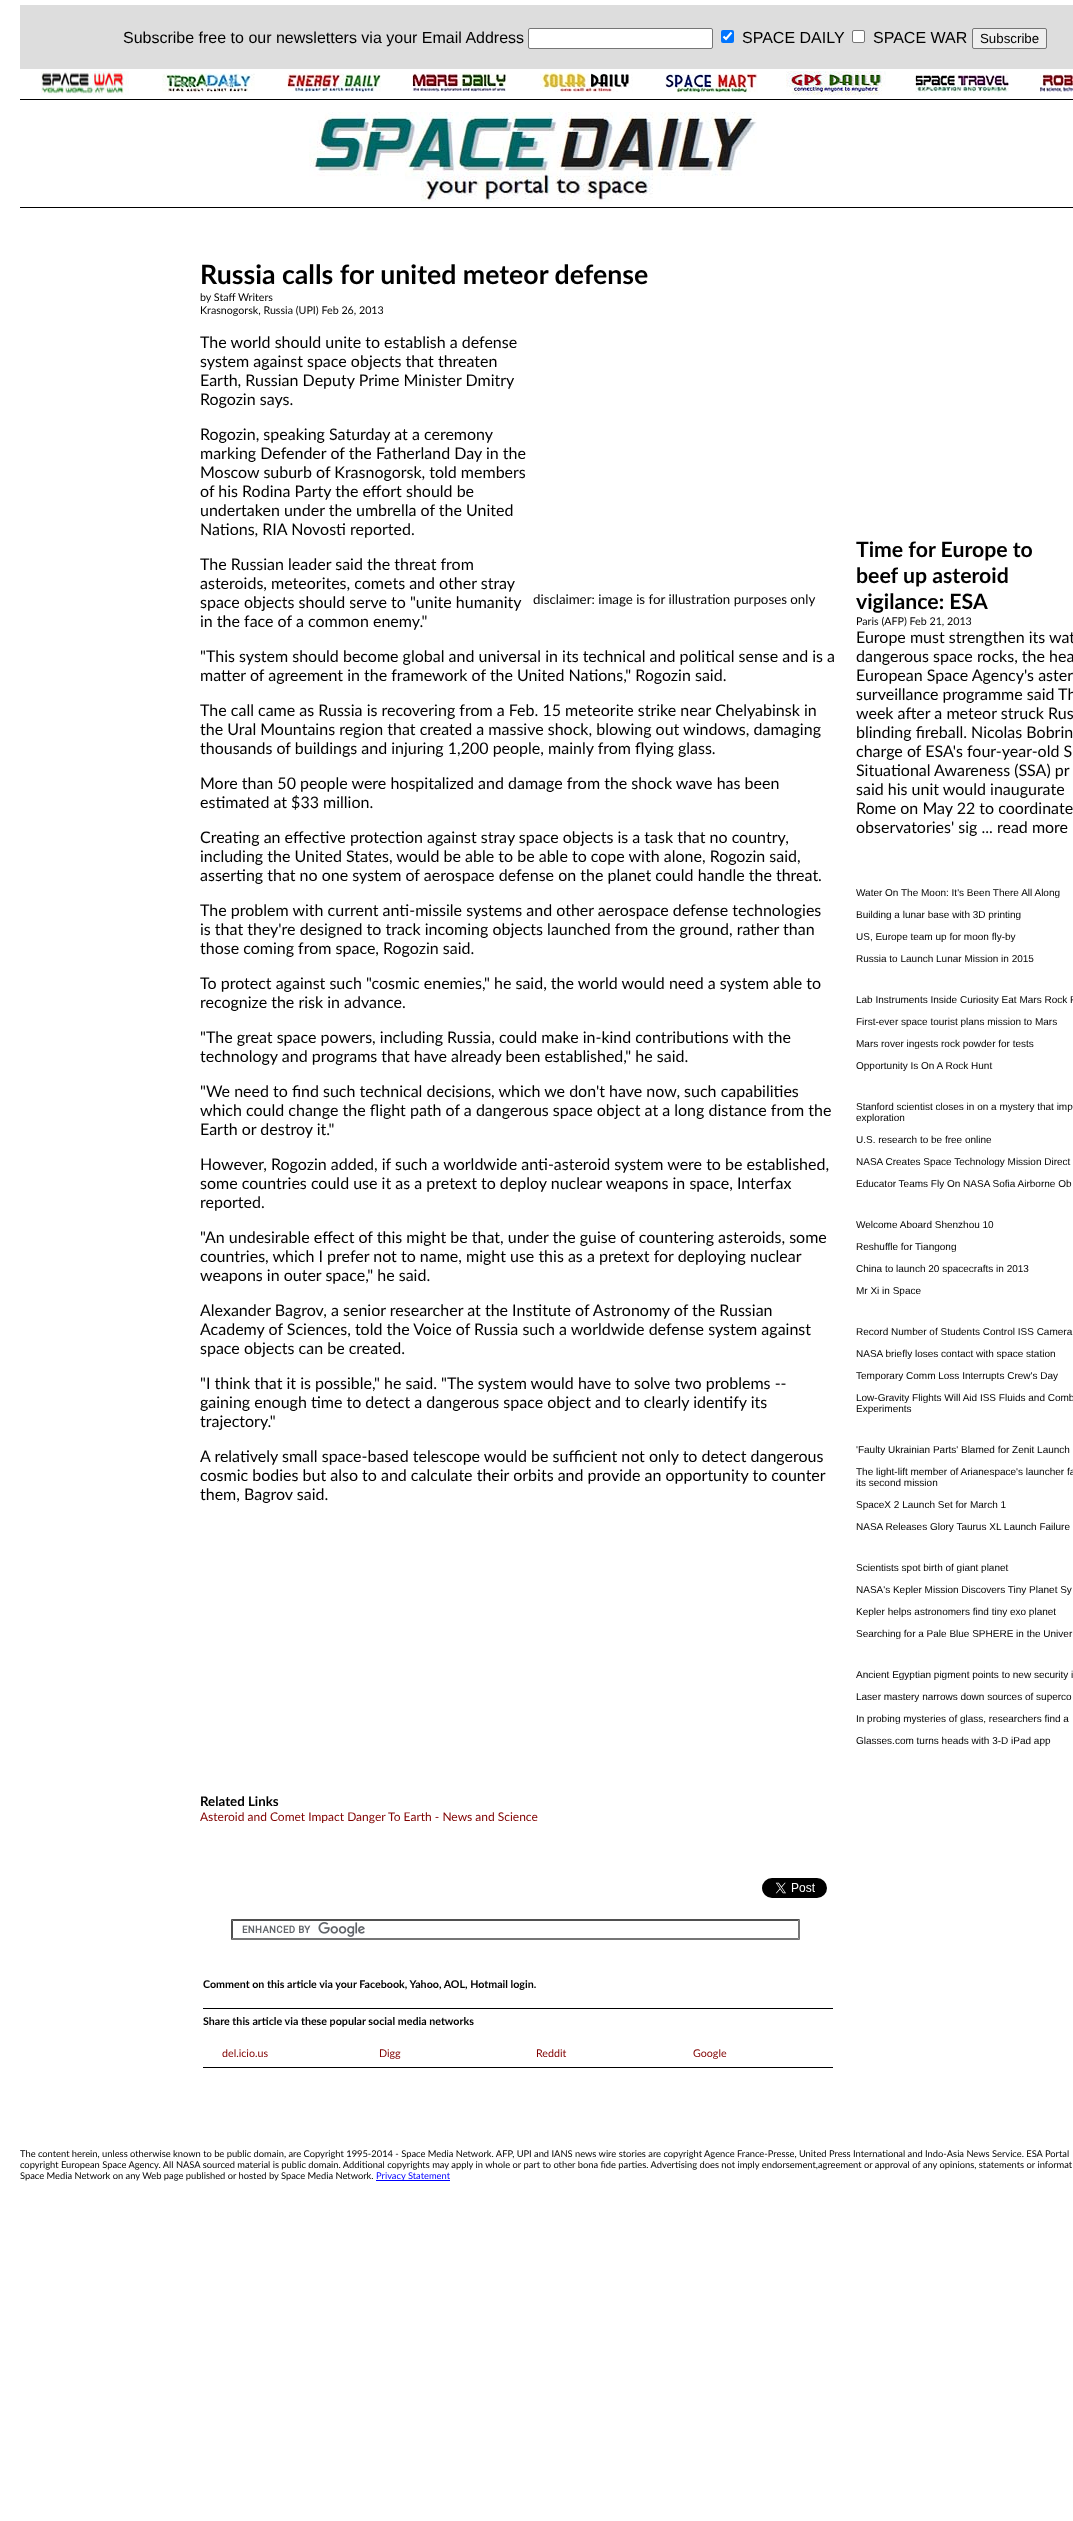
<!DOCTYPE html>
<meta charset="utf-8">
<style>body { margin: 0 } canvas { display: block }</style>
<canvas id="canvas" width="1073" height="2521"></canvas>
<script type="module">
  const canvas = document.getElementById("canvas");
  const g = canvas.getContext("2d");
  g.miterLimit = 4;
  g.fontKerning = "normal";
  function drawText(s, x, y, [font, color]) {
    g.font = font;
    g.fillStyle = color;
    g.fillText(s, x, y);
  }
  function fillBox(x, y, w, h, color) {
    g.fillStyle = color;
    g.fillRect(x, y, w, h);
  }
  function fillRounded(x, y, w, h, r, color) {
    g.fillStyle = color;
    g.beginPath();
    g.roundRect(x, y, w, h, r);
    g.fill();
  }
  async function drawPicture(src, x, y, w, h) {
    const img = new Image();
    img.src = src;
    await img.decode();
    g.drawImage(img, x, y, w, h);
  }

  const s1 = ["16px Liberation Sans", "#000000"];
  const s2 = ["13.3px Liberation Sans", "#000000"];
  const s3 = ["bold 26.7px Lato", "#000000"];
  const s4 = ["10.7px Lato", "#000000"];
  const s5 = ["16px Lato", "#000000"];
  const s6 = ["13.3px Lato", "#000000"];
  const s7 = ["bold 13.3px Lato", "#000000"];
  const s8 = ["12px Lato", "#800000"];
  const s9 = ["bold 10.7px Lato", "#000000"];
  const s10 = ["10.7px Lato", "#800000"];
  const s11 = ["bold 21.25px Lato", "#000000"];
  const s12 = ["10px Liberation Sans", "#000000"];
  const s13 = ["9.33px Lato", "#000000"];
  const s14 = ["9.33px Lato", "#0000FF"];

  fillBox(0, 0, 1073, 2521, "#FFFFFF");
  fillBox(20, 5, 1053, 64, "#DDDDDD");
  drawText("Subscribe free to our newsletters via your Email Address", 123, 43, s1);
  g.fillStyle = "#FFFFFF";
  g.beginPath();
  g.roundRect(528.5, 28.5, 184, 20, 1.5);
  g.fill();
  g.strokeStyle = "#767676";
  g.stroke();
  fillRounded(721, 30, 13, 13, 2, "#0075FF");
  g.beginPath();
  g.moveTo(723.5, 36.5);
  g.lineTo(726, 39);
  g.lineTo(731.5, 32.5);
  g.strokeStyle = "#FFFFFF";
  g.lineWidth = 2.1;
  g.stroke();
  drawText("SPACE DAILY", 742, 43, s1);
  g.fillStyle = "#FFFFFF";
  g.beginPath();
  g.roundRect(852.5, 30.5, 12, 12, 1.5);
  g.fill();
  g.strokeStyle = "#767676";
  g.lineWidth = 1;
  g.stroke();
  drawText("SPACE WAR", 873, 43, s1);
  g.fillStyle = "#EFEFEF";
  g.beginPath();
  g.roundRect(972.5, 28.5, 74, 20, 1.5);
  g.fill();
  g.stroke();
  drawText("Subscribe", 980, 43, s2);
  await drawPicture("pic1.png", 41, 71, 88, 24);
  await drawPicture("pic2.png", 162, 72, 93, 21);
  await drawPicture("pic3.png", 287, 73, 94, 19);
  await drawPicture("pic4.png", 412, 72, 94, 20);
  await drawPicture("pic5.png", 540, 72, 93, 21);
  await drawPicture("pic6.png", 665, 73, 93, 21);
  await drawPicture("pic7.png", 786, 71, 100, 24);
  await drawPicture("pic8.png", 915, 73, 94, 20);
  await drawPicture("pic9.png", 1040, 74, 33, 18);
  fillBox(20, 99, 1053, 1, "#000000");
  await drawPicture("pic10.png", 309, 112, 448, 90);
  fillBox(20, 207, 1053, 1, "#000000");
  drawText("Russia calls for united meteor defense", 200, 284, s3);
  drawText("by Staff Writers", 200, 301, s4);
  drawText("Krasnogorsk, Russia (UPI) Feb 26, 2013", 200, 314, s4);
  drawText("The world should unite to establish a defense", 200, 348, s5);
  drawText("system against space objects that threaten", 200, 367, s5);
  drawText("Earth, Russian Deputy Prime Minister Dmitry", 200, 386, s5);
  drawText("Rogozin says.", 200, 405, s5);
  drawText("Rogozin, speaking Saturday at a ceremony", 200, 440, s5);
  drawText("marking Defender of the Fatherland Day in the", 200, 459, s5);
  drawText("Moscow suburb of Krasnogorsk, told members", 200, 478, s5);
  drawText("of his Rodina Party the effort should be", 200, 497, s5);
  drawText("undertaken under the umbrella of the United", 200, 516, s5);
  drawText("Nations, RIA Novosti reported.", 200, 535, s5);
  drawText("The Russian leader said the threat from", 200, 570, s5);
  drawText("asteroids, meteorites, comets and other stray", 200, 589, s5);
  drawText("space objects should serve to \"unite humanity", 200, 608, s5);
  drawText("in the face of a common enemy.\"", 200, 627, s5);
  drawText("\"This system should become global and universal in its technical and political sense and is a", 200, 662, s5);
  drawText("matter of agreement in the framework of the United Nations,\" Rogozin said.", 200, 681, s5);
  drawText("The call came as Russia is recovering from a Feb. 15 meteorite strike near Chelyabinsk in", 200, 716, s5);
  drawText("the Ural Mountains region that created a massive shock, blowing out windows, damaging", 200, 735, s5);
  drawText("thousands of buildings and injuring 1,200 people, mainly from flying glass.", 200, 754, s5);
  drawText("More than 50 people were hospitalized and damage from the shock wave has been", 200, 789, s5);
  drawText("estimated at $33 million.", 200, 808, s5);
  drawText("Creating an effective protection against stray space objects is a task that no country,", 200, 843, s5);
  drawText("including the United States, would be able to be able to cope with alone, Rogozin said,", 200, 862, s5);
  drawText("asserting that no one system of aerospace defense on the planet could handle the threat.", 200, 881, s5);
  drawText("The problem with current anti-missile systems and other aerospace defense technologies", 200, 916, s5);
  drawText("is that they're designed to track incoming objects launched from the ground, rather than", 200, 935, s5);
  drawText("those coming from space, Rogozin said.", 200, 954, s5);
  drawText("To protect against such \"cosmic enemies,\" he said, the world would need a system able to", 200, 989, s5);
  drawText("recognize the risk in advance.", 200, 1008, s5);
  drawText("\"The great space powers, including Russia, could make in-kind contributions with the", 200, 1043, s5);
  drawText("technology and programs that have already been established,\" he said.", 200, 1062, s5);
  drawText("\"We need to find such technical decisions, which we don't have now, such capabilities", 200, 1097, s5);
  drawText("which could change the flight path of a dangerous space object at a long distance from the", 200, 1116, s5);
  drawText("Earth or destroy it.\"", 200, 1135, s5);
  drawText("However, Rogozin added, if such a worldwide anti-asteroid system were to be established,", 200, 1170, s5);
  drawText("some countries could use it as a pretext to deploy nuclear weapons in space, Interfax", 200, 1189, s5);
  drawText("reported.", 200, 1208, s5);
  drawText("\"An undesirable effect of this might be that, under the guise of countering asteroids, some", 200, 1243, s5);
  drawText("countries, which I prefer not to name, might use this as a pretext for deploying nuclear", 200, 1262, s5);
  drawText("weapons in outer space,\" he said.", 200, 1281, s5);
  drawText("Alexander Bagrov, a senior researcher at the Institute of Astronomy of the Russian", 200, 1316, s5);
  drawText("Academy of Sciences, told the Voice of Russia such a worldwide defense system against", 200, 1335, s5);
  drawText("space objects can be created.", 200, 1354, s5);
  drawText("\"I think that it is possible,\" he said. \"The system would have to solve two problems --", 200, 1389, s5);
  drawText("gaining enough time to detect a dangerous space object and to clearly identify its", 200, 1408, s5);
  drawText("trajectory.\"", 200, 1427, s5);
  drawText("A relatively small space-based telescope would be sufficient not only to detect dangerous", 200, 1462, s5);
  drawText("cosmic bodies but also to and calculate their orbits and provide an opportunity to counter", 200, 1481, s5);
  drawText("them, Bagrov said.", 200, 1500, s5);
  drawText("disclaimer: image is for illustration purposes only", 533, 604, s6);
  drawText("Related Links", 200, 1806, s7);
  drawText("Asteroid and Comet Impact Danger To Earth - News and Science", 200, 1821, s8);
  await drawPicture("pic11.png", 762, 1878, 65, 20);
  await drawPicture("pic12.png", 242, 1922, 123, 15);
  g.fillStyle = "#4F4F4F";
  g.beginPath();
  g.moveTo(231, 1919);
  g.lineTo(800, 1919);
  g.lineTo(798, 1921);
  g.lineTo(233, 1921);
  g.closePath();
  g.fill();
  g.fillStyle = "#767676";
  g.beginPath();
  g.moveTo(800, 1919);
  g.lineTo(800, 1940);
  g.lineTo(798, 1938);
  g.lineTo(798, 1921);
  g.closePath();
  g.fill();
  g.beginPath();
  g.moveTo(800, 1940);
  g.lineTo(231, 1940);
  g.lineTo(233, 1938);
  g.lineTo(798, 1938);
  g.closePath();
  g.fill();
  g.fillStyle = "#4F4F4F";
  g.beginPath();
  g.moveTo(231, 1940);
  g.lineTo(231, 1919);
  g.lineTo(233, 1921);
  g.lineTo(233, 1938);
  g.closePath();
  g.fill();
  drawText("Comment on this article via your Facebook, Yahoo, AOL, Hotmail login.", 203, 1988, s9);
  fillBox(203, 2008, 630, 1, "#000000");
  drawText("Share this article via these popular social media networks", 203, 2025, s9);
  drawText("del.icio.us", 222, 2057, s10);
  drawText("Digg", 379, 2057, s10);
  drawText("Reddit", 536, 2057, s10);
  drawText("Google", 693, 2057, s10);
  fillBox(203, 2067, 630, 1, "#000000");
  drawText("Time for Europe to", 856, 557, s11);
  drawText("beef up asteroid", 856, 583, s11);
  drawText("vigilance: ESA", 856, 609, s11);
  drawText("Paris (AFP) Feb 21, 2013", 856, 625, s4);
  drawText("Europe must strengthen its wat", 856, 643, s5);
  drawText("dangerous space rocks, the hea", 856, 662, s5);
  drawText("European Space Agency's aster", 856, 681, s5);
  drawText("surveillance programme said Th", 856, 700, s5);
  drawText("week after a meteor struck Rus", 856, 719, s5);
  drawText("blinding fireball. Nicolas Bobrin", 856, 738, s5);
  drawText("charge of ESA's four-year-old S", 856, 757, s5);
  drawText("Situational Awareness (SSA) pr", 856, 776, s5);
  drawText("said his unit would inaugurate", 856, 795, s5);
  drawText("Rome on May 22 to coordinate", 856, 814, s5);
  drawText("observatories' sig ... read more", 856, 833, s5);
  drawText("Water On The Moon: It's Been There All Along", 856, 896, s12);
  drawText("Building a lunar base with 3D printing", 856, 918, s12);
  drawText("US, Europe team up for moon fly-by", 856, 940, s12);
  drawText("Russia to Launch Lunar Mission in 2015", 856, 962, s12);
  drawText("Lab Instruments Inside Curiosity Eat Mars Rock P", 856, 1003, s12);
  drawText("First-ever space tourist plans mission to Mars", 856, 1025, s12);
  drawText("Mars rover ingests rock powder for tests", 856, 1047, s12);
  drawText("Opportunity Is On A Rock Hunt", 856, 1069, s12);
  drawText("Stanford scientist closes in on a mystery that imp", 856, 1110, s12);
  drawText("exploration", 856, 1121, s12);
  drawText("U.S. research to be free online", 856, 1143, s12);
  drawText("NASA Creates Space Technology Mission Direct", 856, 1165, s12);
  drawText("Educator Teams Fly On NASA Sofia Airborne Ob", 856, 1187, s12);
  drawText("Welcome Aboard Shenzhou 10", 856, 1228, s12);
  drawText("Reshuffle for Tiangong", 856, 1250, s12);
  drawText("China to launch 20 spacecrafts in 2013", 856, 1272, s12);
  drawText("Mr Xi in Space", 856, 1294, s12);
  drawText("Record Number of Students Control ISS Camera", 856, 1335, s12);
  drawText("NASA briefly loses contact with space station", 856, 1357, s12);
  drawText("Temporary Comm Loss Interrupts Crew's Day", 856, 1379, s12);
  drawText("Low-Gravity Flights Will Aid ISS Fluids and Comb", 856, 1401, s12);
  drawText("Experiments", 856, 1412, s12);
  drawText("'Faulty Ukrainian Parts' Blamed for Zenit Launch", 856, 1453, s12);
  drawText("The light-lift member of Arianespace's launcher fa", 856, 1475, s12);
  drawText("its second mission", 856, 1486, s12);
  drawText("SpaceX 2 Launch Set for March 1", 856, 1508, s12);
  drawText("NASA Releases Glory Taurus XL Launch Failure", 856, 1530, s12);
  drawText("Scientists spot birth of giant planet", 856, 1571, s12);
  drawText("NASA's Kepler Mission Discovers Tiny Planet Sy", 856, 1593, s12);
  drawText("Kepler helps astronomers find tiny exo planet", 856, 1615, s12);
  drawText("Searching for a Pale Blue SPHERE in the Univer", 856, 1637, s12);
  drawText("Ancient Egyptian pigment points to new security i", 856, 1678, s12);
  drawText("Laser mastery narrows down sources of superco", 856, 1700, s12);
  drawText("In probing mysteries of glass, researchers find a", 856, 1722, s12);
  drawText("Glasses.com turns heads with 3-D iPad app", 856, 1744, s12);
  drawText("The content herein, unless otherwise known to be public domain, are Copyright 1995-2014 - Space Media Network. AFP, UPI", 20, 2157, s13);
  drawText("and IANS news wire stories are copyright Agence France-Presse, United Press International and Indo-Asia News Service. ESA Portal", 534, 2157, s13);
  drawText("copyright European Space Agency. All NASA sourced material is public domain. Additional copyrights may apply in whole or part to other bona fide parties. Advertising does not imply endorsement,agreement or approval of any opinions, statements or informat", 20, 2168, s13);
  drawText("Space Media Network on any Web page published or hosted by Space Media Network.", 20, 2179, s13);
  fillBox(376, 2180, 74, 1, "#0000FF");
  drawText("Privacy Statement", 376, 2179, s14);
</script>
